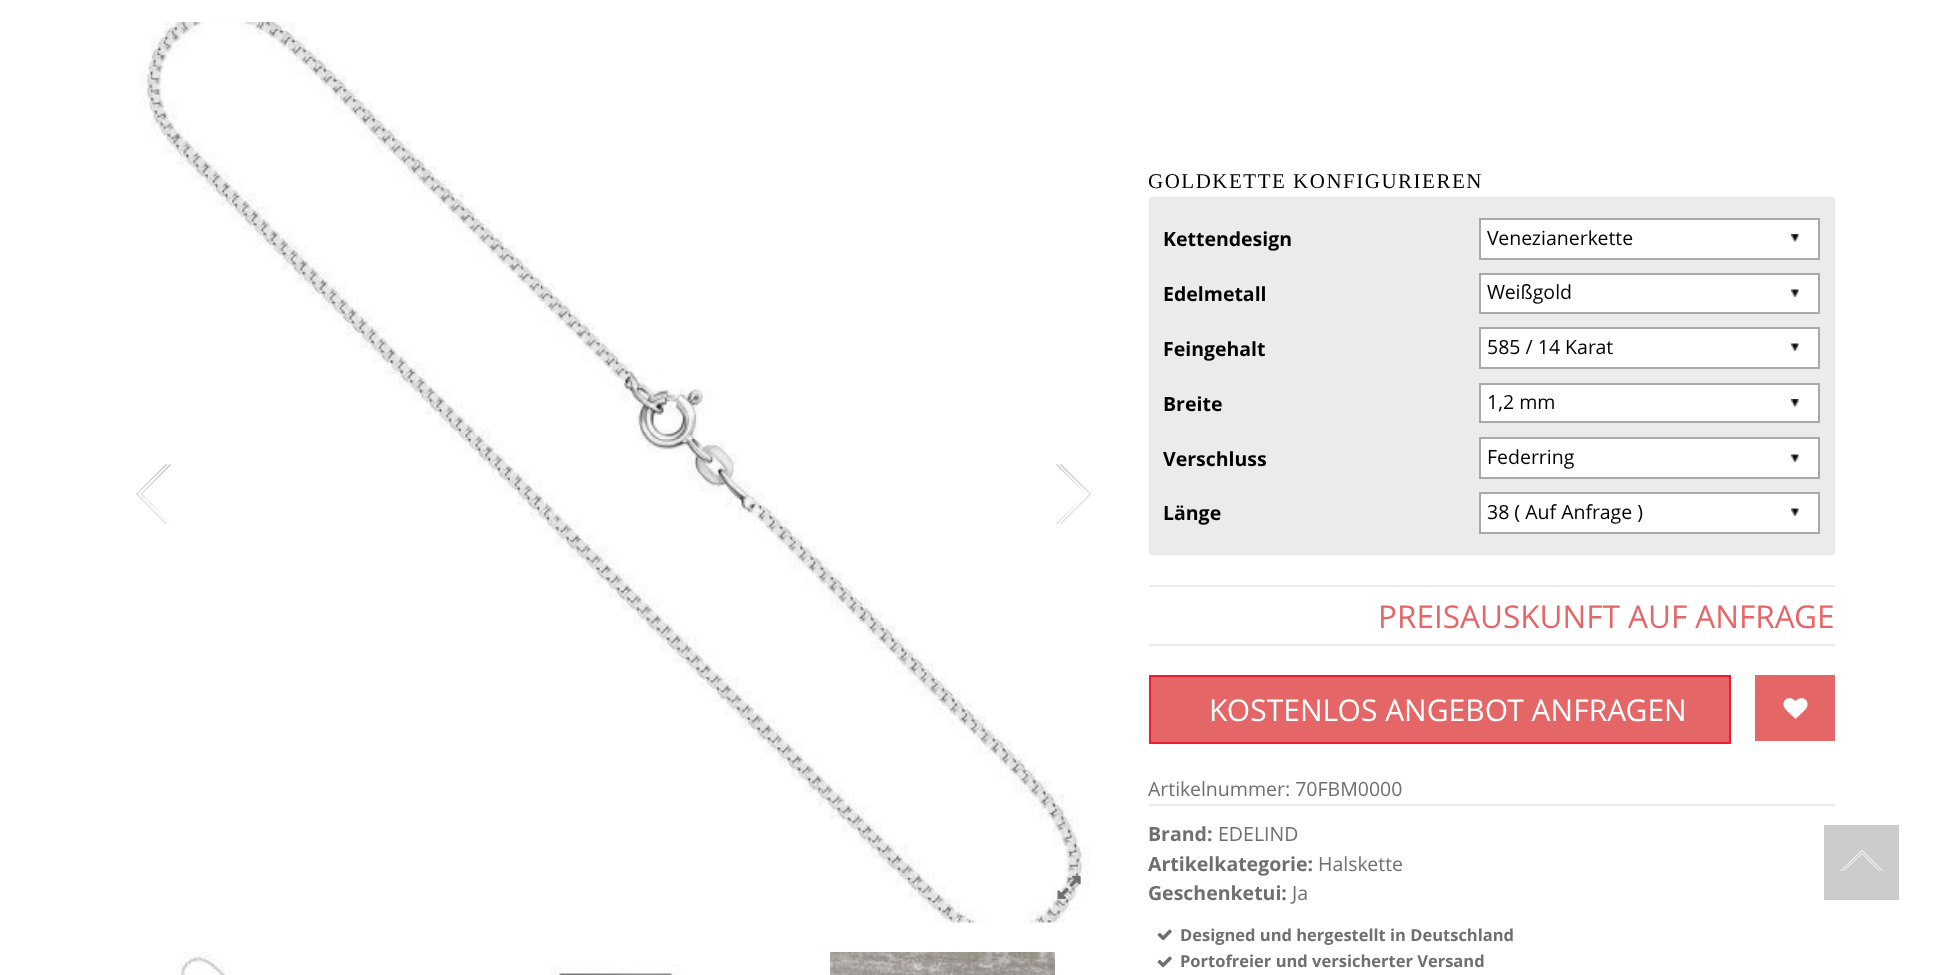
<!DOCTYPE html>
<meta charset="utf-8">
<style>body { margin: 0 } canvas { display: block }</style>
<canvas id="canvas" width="1959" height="975"></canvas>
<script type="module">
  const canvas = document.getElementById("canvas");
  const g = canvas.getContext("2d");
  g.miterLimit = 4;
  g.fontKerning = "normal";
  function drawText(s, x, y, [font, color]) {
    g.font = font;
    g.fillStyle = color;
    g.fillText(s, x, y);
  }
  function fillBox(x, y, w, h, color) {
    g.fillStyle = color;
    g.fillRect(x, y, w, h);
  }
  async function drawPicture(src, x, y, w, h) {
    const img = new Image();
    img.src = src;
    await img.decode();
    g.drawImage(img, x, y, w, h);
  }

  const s1 = ["21px Liberation Serif", "#000000"];
  const s2 = ["bold 19.5px Open Sans", "#000000"];
  const s3 = ["19.5px Open Sans", "#000000"];
  const s4 = ["31.5px Open Sans", "#E46666"];
  const s5 = ["30px Open Sans", "#FFFFFF"];
  const s6 = ["19.5px Open Sans", "#6F6F6F"];
  const s7 = ["bold 19.5px Open Sans", "#6F6F6F"];
  const s8 = ["bold 16.5px Open Sans", "#6F6F6F"];

  fillBox(0, 0, 1959, 975, "#FFFFFF");
  await drawPicture("pic1.png", 138, 22, 953, 901);
  g.fillStyle = "#C6C6C6";
  g.beginPath();
  g.moveTo(167, 465);
  g.lineTo(166, 464);
  g.lineTo(136, 494);
  g.lineTo(166, 524);
  g.lineTo(167, 524);
  g.lineTo(137, 494);
  g.closePath();
  g.moveTo(142, 494);
  g.lineTo(171, 465);
  g.lineTo(170, 464);
  g.lineTo(141, 494);
  g.lineTo(171, 524);
  g.closePath();
  g.fill();
  g.beginPath();
  g.moveTo(1060, 465);
  g.lineTo(1061, 464);
  g.lineTo(1091, 494);
  g.lineTo(1061, 524);
  g.lineTo(1060, 524);
  g.lineTo(1090, 494);
  g.closePath();
  g.moveTo(1086, 494);
  g.lineTo(1056, 465);
  g.lineTo(1057, 464);
  g.lineTo(1086, 494);
  g.lineTo(1057, 524);
  g.lineTo(1056, 524);
  g.closePath();
  g.fill();
  await drawPicture("pic2.png", 1057, 875, 24, 24);
  await drawPicture("pic3.png", 176, 952, 55, 23);
  await drawPicture("pic4.png", 550, 964, 131, 11);
  await drawPicture("pic5.png", 830, 952, 225, 23);
  g.letterSpacing = "1.5px";
  drawText("GOLDKETTE KONFIGURIEREN", 1148, 188, s1);
  fillBox(1149, 197, 686, 358, "#EBEBEB");
  g.letterSpacing = "0px";
  drawText("Kettendesign", 1163, 246, s2);
  fillBox(1481, 220, 337, 38, "#FFFFFF");
  await drawPicture("pic6.png", 1791, 234, 8, 8);
  g.strokeStyle = "#A9A9A9";
  g.lineWidth = 2;
  g.strokeRect(1480, 219, 339, 40);
  drawText("Venezianerkette", 1487, 245, s3);
  drawText("Edelmetall", 1163, 301, s2);
  fillBox(1481, 275, 337, 37, "#FFFFFF");
  await drawPicture("pic7.png", 1791, 289, 8, 8);
  g.strokeRect(1480, 274, 339, 39);
  drawText("Weißgold", 1487, 299, s3);
  drawText("Feingehalt", 1163, 356, s2);
  fillBox(1481, 329, 337, 38, "#FFFFFF");
  await drawPicture("pic7.png", 1791, 343, 8, 8);
  g.strokeRect(1480, 328, 339, 40);
  drawText("585 / 14 Karat", 1487, 354, s3);
  drawText("Breite", 1163, 411, s2);
  fillBox(1481, 385, 337, 36, "#FFFFFF");
  await drawPicture("pic6.png", 1791, 399, 8, 8);
  g.strokeRect(1480, 384, 339, 38);
  drawText("1,2 mm", 1487, 409, s3);
  drawText("Verschluss", 1163, 466, s2);
  fillBox(1481, 439, 337, 38, "#FFFFFF");
  await drawPicture("pic7.png", 1791, 454, 8, 8);
  g.strokeRect(1480, 438, 339, 40);
  drawText("Federring", 1487, 464, s3);
  drawText("Länge", 1163, 520, s2);
  fillBox(1481, 494, 337, 38, "#FFFFFF");
  await drawPicture("pic7.png", 1791, 508, 8, 8);
  g.strokeRect(1480, 493, 339, 40);
  drawText("38 ( Auf Anfrage )", 1487, 519, s3);
  fillBox(1149, 585, 686, 2, "#EBEBEB");
  fillBox(1149, 644, 686, 2, "#EBEBEB");
  drawText("PREISAUSKUNFT AUF ANFRAGE", 1378, 628, s4);
  g.beginPath();
  g.rect(1150, 676, 580, 67);
  g.fill();
  g.strokeStyle = "#ED1C2E";
  g.stroke();
  drawText("KOSTENLOS ANGEBOT ANFRAGEN", 1209, 721, s5);
  fillBox(1755, 675, 80, 66, "#E46666");
  await drawPicture("pic8.png", 1783, 698, 25, 21);
  fillBox(1149, 804, 686, 2, "#EBEBEB");
  drawText("Artikelnummer: 70FBM0000", 1148, 796, s6);
  drawText("Brand:", 1148, 841, s7);
  drawText("EDELIND", 1218, 841, s6);
  drawText("Artikelkategorie:", 1148, 871, s7);
  drawText("Halskette", 1318, 871, s6);
  drawText("Geschenketui:", 1148, 900, s7);
  drawText("Ja", 1292, 900, s6);
  await drawPicture("pic9.png", 1157, 929, 15, 12);
  drawText("Designed und hergestellt in Deutschland", 1180, 941, s8);
  await drawPicture("pic9.png", 1157, 956, 15, 12);
  drawText("Portofreier und versicherter Versand", 1180, 967, s8);
  fillBox(1824, 825, 75, 75, "#CCCCCC");
  g.fillStyle = "#FFFFFF";
  g.beginPath();
  g.moveTo(1844, 871);
  g.lineTo(1862, 854);
  g.lineTo(1879, 871);
  g.lineTo(1880, 871);
  g.lineTo(1862, 853);
  g.lineTo(1843, 871);
  g.closePath();
  g.moveTo(1841, 871);
  g.lineTo(1862, 851);
  g.lineTo(1882, 871);
  g.lineTo(1883, 871);
  g.lineTo(1862, 850);
  g.lineTo(1840, 871);
  g.closePath();
  g.fill();
</script>
